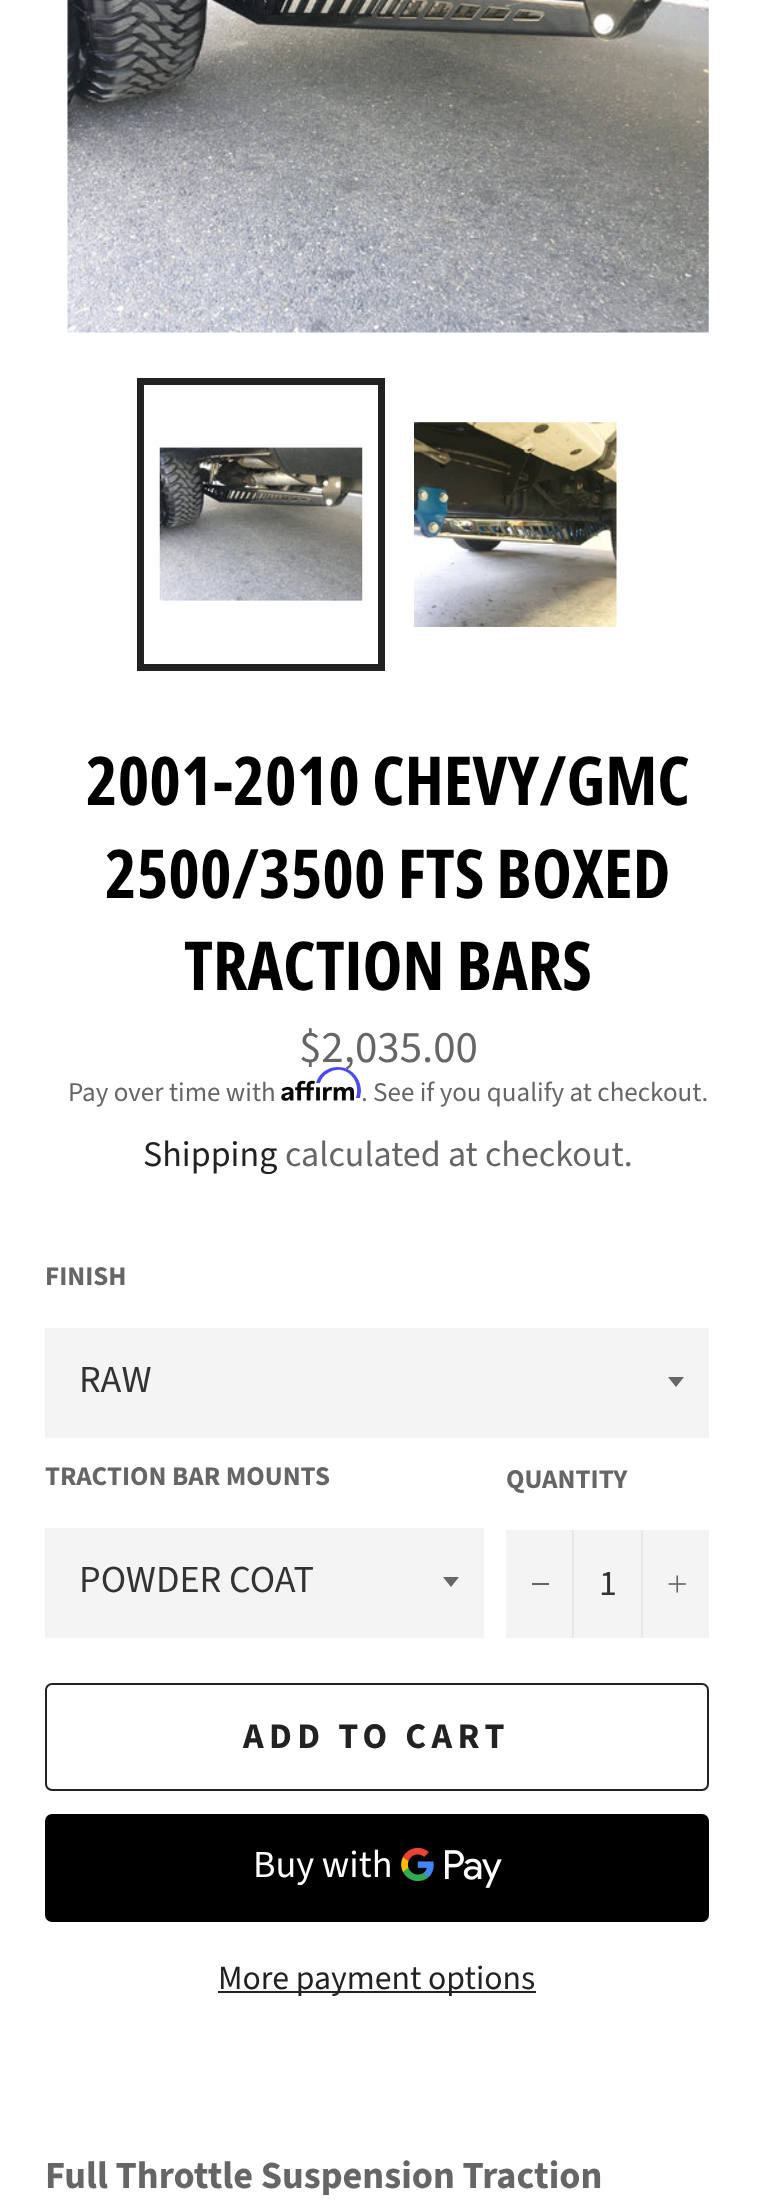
<!DOCTYPE html>
<meta charset="utf-8">
<style>body { margin: 0 } canvas { display: block }</style>
<canvas id="canvas" width="776" height="2211"></canvas>
<script type="module">
  const canvas = document.getElementById("canvas");
  const g = canvas.getContext("2d");
  g.miterLimit = 4;
  g.fontKerning = "normal";
  function drawText(s, x, y, [font, color]) {
    g.font = font;
    g.fillStyle = color;
    g.fillText(s, x, y);
  }
  function fillBox(x, y, w, h, color) {
    g.fillStyle = color;
    g.fillRect(x, y, w, h);
  }
  function fillRounded(x, y, w, h, r, color) {
    g.fillStyle = color;
    g.beginPath();
    g.roundRect(x, y, w, h, r);
    g.fill();
  }
  async function drawPicture(src, x, y, w, h) {
    const img = new Image();
    img.src = src;
    await img.decode();
    g.drawImage(img, x, y, w, h);
  }

  const s1 = ["bold 67.5px Open Sans Condensed", "#000000"];
  const s2 = ["45px Source Sans Pro", "#666666"];
  const s3 = ["27px Source Sans Pro", "#666666"];
  const s4 = ["36px Source Sans Pro", "#222222"];
  const s5 = ["36px Source Sans Pro", "#666666"];
  const s6 = ["bold 27px Source Sans Pro", "#666666"];
  const s7 = ["38.25px Source Sans Pro", "#333333"];
  const s8 = ["36px Source Sans Pro", "#333333"];
  const s9 = ["bold 36px Source Sans Pro", "#222222"];
  const s10 = ["38.25px Source Sans Pro", "#FFFFFF"];
  const s11 = ["33.75px Source Sans Pro", "#222222"];
  const s12 = ["bold 38.25px Source Sans Pro", "#666666"];

  fillBox(0, 0, 776, 2211, "#FFFFFF");
  await drawPicture("pic1.png", 67, 0, 642, 333);
  await drawPicture("pic2.png", 159, 447, 204, 154);
  g.strokeStyle = "#222222";
  g.lineWidth = 7;
  g.strokeRect(140.5, 381.5, 241, 286);
  await drawPicture("pic3.png", 414, 422, 203, 205);
  drawText("2001-2010 CHEVY/GMC", 86, 805, s1);
  drawText("2500/3500 FTS BOXED", 105, 898, s1);
  drawText("TRACTION BARS", 184, 990, s1);
  drawText("$2,035.00", 299, 1062, s2);
  drawText("Pay over time with", 68, 1101, s3);
  await drawPicture("pic4.png", 281, 1080, 73, 21);
  g.fillStyle = "#4A4AF4";
  g.beginPath();
  g.moveTo(338, 1067);
  g.bezierCurveTo(328, 1067, 319, 1073, 316, 1083);
  g.lineTo(320, 1083);
  g.bezierCurveTo(321, 1079, 324, 1075, 328, 1073);
  g.bezierCurveTo(345, 1062, 362, 1080, 356, 1098);
  g.lineTo(360, 1098);
  g.lineTo(361, 1091);
  g.bezierCurveTo(361, 1078, 351, 1067, 338, 1067);
  g.closePath();
  g.fill();
  drawText(". See if you qualify at checkout.", 361, 1101, s3);
  drawText("Shipping", 143, 1166, s4);
  drawText("calculated at checkout.", 285, 1166, s5);
  drawText("FINISH", 45, 1285, s6);
  fillBox(45, 1328, 664, 110, "#F4F4F4");
  g.fillStyle = "#666666";
  g.beginPath();
  g.moveTo(668, 1377);
  g.lineTo(676, 1387);
  g.lineTo(684, 1377);
  g.closePath();
  g.fill();
  drawText("RAW", 79, 1392, s7);
  drawText("TRACTION BAR MOUNTS", 45, 1485, s6);
  fillBox(45, 1528, 439, 110, "#F4F4F4");
  g.fillStyle = "#666666";
  g.beginPath();
  g.moveTo(443, 1577);
  g.lineTo(451, 1587);
  g.lineTo(459, 1577);
  g.closePath();
  g.fill();
  drawText("POWDER COAT", 79, 1592, s7);
  drawText("QUANTITY", 506, 1488, s6);
  fillBox(506, 1530, 203, 108, "#F4F4F4");
  fillBox(572, 1530, 2, 108, "#E7E7E7");
  fillBox(532, 1583, 17, 2, "#666666");
  drawText("1", 599, 1595, s8);
  fillBox(641, 1530, 2, 108, "#E7E7E7");
  await drawPicture("pic5.png", 668, 1575, 18, 18);
  g.beginPath();
  g.roundRect(46, 1684, 662, 106, 6);
  g.lineWidth = 2;
  g.stroke();
  g.letterSpacing = "5.4px";
  drawText("ADD TO CART", 243, 1748, s9);
  fillRounded(45, 1814, 664, 108, 7, "#000000");
  g.letterSpacing = "0px";
  drawText("Buy with", 253, 1877, s10);
  await drawPicture("pic6.png", 401, 1847, 101, 41);
  fillBox(218, 1991, 318, 2, "#222222");
  drawText("More payment options", 218, 1989, s11);
  drawText("Full Throttle Suspension Traction", 45, 2188, s12);
</script>
